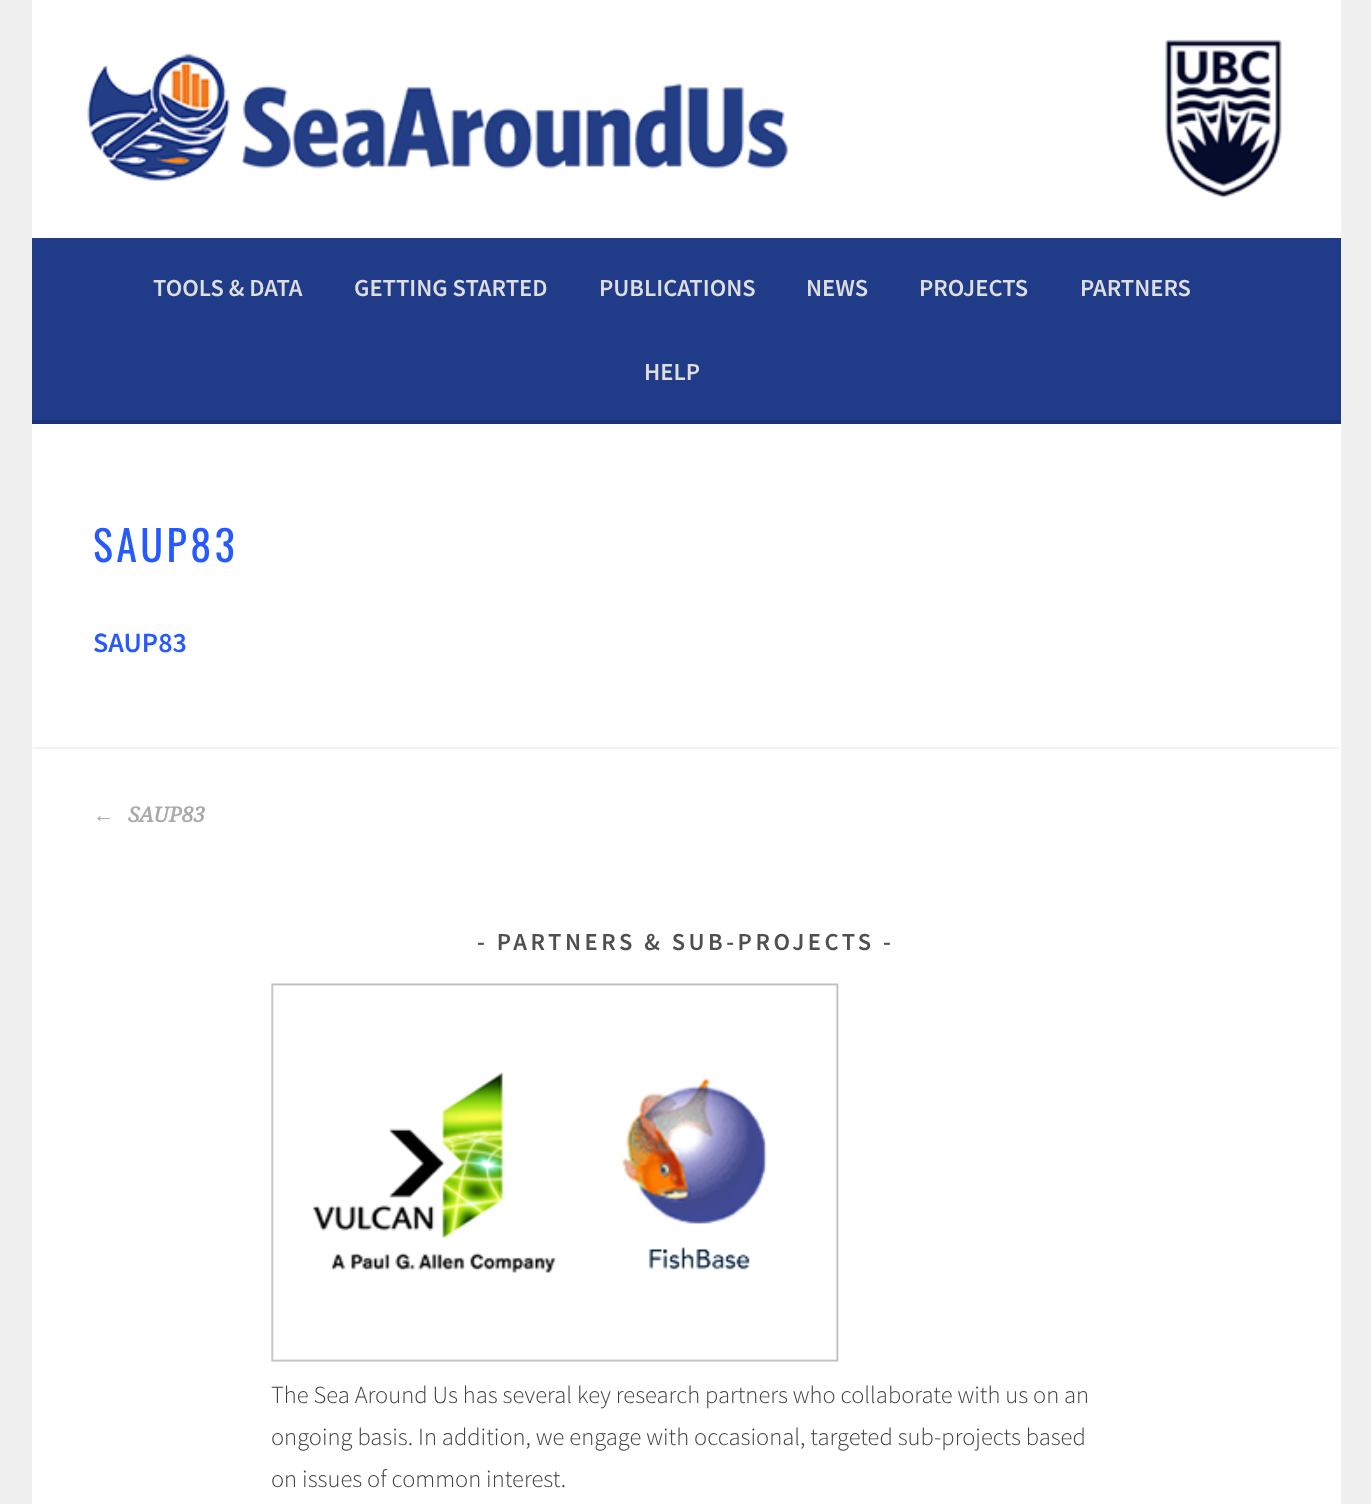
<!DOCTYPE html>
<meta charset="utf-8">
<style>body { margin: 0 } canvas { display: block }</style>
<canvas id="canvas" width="1371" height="1504"></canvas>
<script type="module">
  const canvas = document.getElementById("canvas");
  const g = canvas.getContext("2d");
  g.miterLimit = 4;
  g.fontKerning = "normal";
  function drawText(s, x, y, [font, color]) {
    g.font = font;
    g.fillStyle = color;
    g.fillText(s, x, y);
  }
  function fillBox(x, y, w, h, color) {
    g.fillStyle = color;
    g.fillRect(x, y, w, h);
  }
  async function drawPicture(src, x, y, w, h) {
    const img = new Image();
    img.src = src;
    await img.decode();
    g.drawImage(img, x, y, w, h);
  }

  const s1 = ["600 24.5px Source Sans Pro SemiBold", "#DEDEDE"];
  const s2 = ["42px Oswald", "#2659FF"];
  const s3 = ["600 28px Source Sans Pro SemiBold", "#2659FF"];
  const s4 = ["italic bold 21px Liberation Serif", "#AAAAAA"];
  const s5 = ["italic bold 21px Droid Serif", "#AAAAAA"];
  const s6 = ["600 24.5px Source Sans Pro SemiBold", "#4F4F4F"];
  const s7 = ["300 24.5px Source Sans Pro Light", "#404040"];

  fillBox(0, 0, 1371, 1504, "#F0F0F0");
  fillBox(32, 0, 1309, 238, "#FFFFFF");
  await drawPicture("pic1.png", 87, 53, 701, 128);
  await drawPicture("pic2.png", 1165, 39, 117, 159);
  fillBox(32, 238, 1309, 182, "#203C88");
  fillBox(32, 420, 1309, 4, "#1B3374");
  drawText("TOOLS & DATA", 153, 296, s1);
  drawText("GETTING STARTED", 354, 296, s1);
  drawText("PUBLICATIONS", 599, 296, s1);
  drawText("NEWS", 806, 296, s1);
  drawText("PROJECTS", 919, 296, s1);
  drawText("PARTNERS", 1080, 296, s1);
  drawText("HELP", 644, 380, s1);
  fillBox(32, 424, 1309, 1080, "#FFFFFF");
  g.letterSpacing = "3.5px";
  drawText("SAUP83", 93, 562, s2);
  g.letterSpacing = "0px";
  drawText("SAUP83", 93, 652, s3);
  fillBox(33, 747, 1306, 2, "#F2F2F2");
  drawText("←", 93, 822, s4);
  drawText("SAUP83", 128, 822, s5);
  g.letterSpacing = "3.5px";
  drawText("- PARTNERS & SUB-PROJECTS -", 477, 950, s6);
  await drawPicture("pic3.png", 271, 983, 568, 379);
  g.letterSpacing = "0px";
  drawText("The Sea Around Us has several key research partners who collaborate with us on an", 271, 1403, s7);
  drawText("ongoing basis. In addition, we engage with occasional, targeted sub-projects based", 271, 1445, s7);
  drawText("on issues of common interest.", 271, 1487, s7);
</script>
